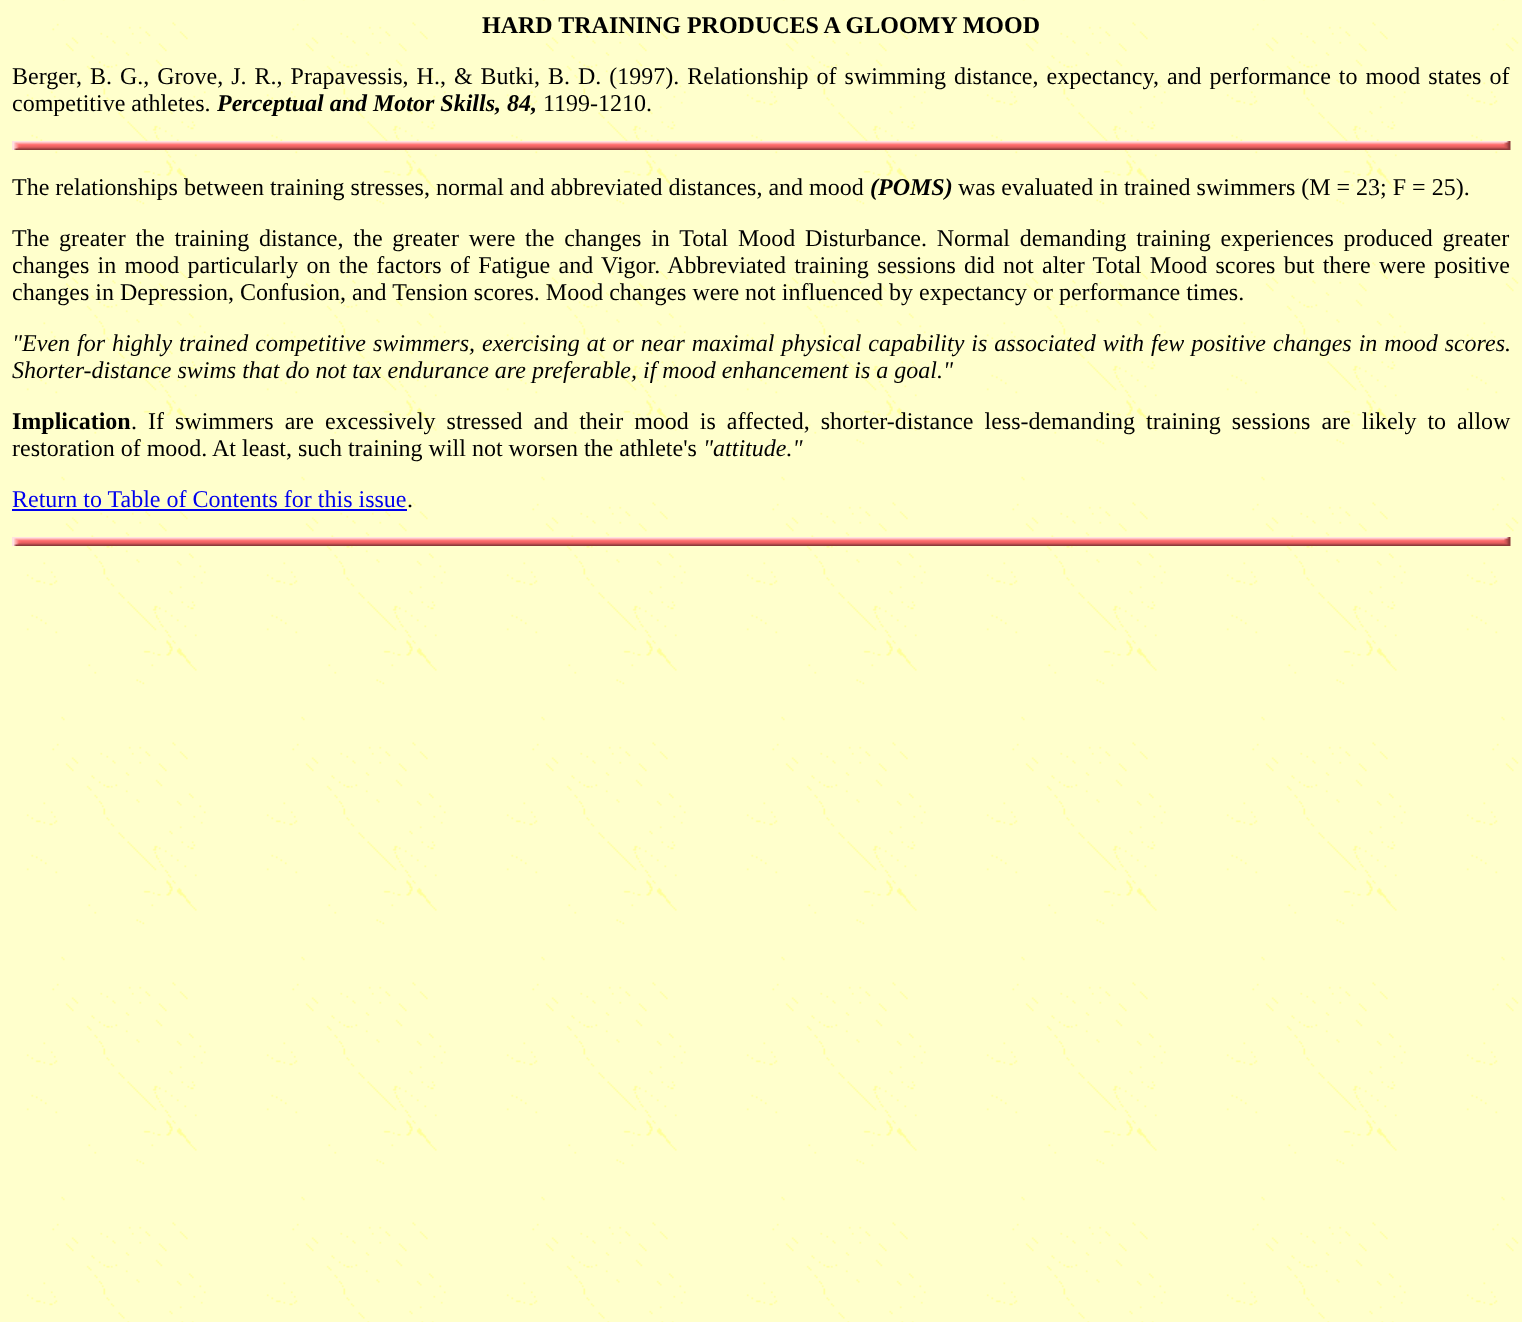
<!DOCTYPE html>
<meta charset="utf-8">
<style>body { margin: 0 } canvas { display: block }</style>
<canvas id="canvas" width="1522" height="1322"></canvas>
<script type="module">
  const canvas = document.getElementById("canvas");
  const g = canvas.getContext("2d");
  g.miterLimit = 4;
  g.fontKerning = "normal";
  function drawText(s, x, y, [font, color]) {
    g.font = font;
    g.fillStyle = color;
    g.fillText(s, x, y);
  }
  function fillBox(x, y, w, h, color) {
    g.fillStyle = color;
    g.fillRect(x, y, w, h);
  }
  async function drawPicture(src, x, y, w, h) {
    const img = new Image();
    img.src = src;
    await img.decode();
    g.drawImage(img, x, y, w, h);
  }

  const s1 = ["bold 24px Liberation Serif", "#000000"];
  const s2 = ["24px Liberation Serif", "#000000"];
  const s3 = ["italic bold 24px Liberation Serif", "#000000"];
  const s4 = ["italic 24px Liberation Serif", "#000000"];
  const s5 = ["24px Liberation Serif", "#0000EE"];

  fillBox(0, 0, 1522, 1322, "#FFFFFF");
  await drawPicture("pic1.png", 0, 0, 1522, 1322);
  drawText("HARD TRAINING PRODUCES A GLOOMY MOOD", 482, 33, s1);
  g.wordSpacing = "2px";
  drawText("Berger, B. G., Grove, J. R., Prapavessis, H., & Butki, B. D. (1997). Relationship of swimming distance, expectancy, and performance to mood states of", 12, 84, s2);
  g.wordSpacing = "0px";
  drawText("competitive athletes.", 12, 111, s2);
  drawText("Perceptual and Motor Skills, 84,", 217, 111, s3);
  drawText("1199-1210.", 543, 111, s2);
  await drawPicture("pic2.png", 12, 141, 1499, 9);
  drawText("The relationships between training stresses, normal and abbreviated distances, and mood", 12, 195, s2);
  drawText("(POMS)", 870, 195, s3);
  drawText("was evaluated in trained swimmers (M = 23; F = 25).", 958, 195, s2);
  g.wordSpacing = "3.75px";
  drawText("The greater the training distance, the greater were the changes in Total Mood Disturbance. Normal demanding training experiences produced greater", 12, 246, s2);
  g.wordSpacing = "2.3px";
  drawText("changes in mood particularly on the factors of Fatigue and Vigor. Abbreviated training sessions did not alter Total Mood scores but there were positive", 12, 273, s2);
  g.wordSpacing = "0px";
  drawText("changes in Depression, Confusion, and Tension scores. Mood changes were not influenced by expectancy or performance times.", 12, 300, s2);
  g.wordSpacing = "1px";
  drawText("\"Even for highly trained competitive swimmers, exercising at or near maximal physical capability is associated with few positive changes in mood scores.", 12, 351, s4);
  g.wordSpacing = "0px";
  drawText("Shorter-distance swims that do not tax endurance are preferable, if mood enhancement is a goal.\"", 12, 378, s4);
  drawText("Implication", 12, 429, s1);
  g.wordSpacing = "5px";
  drawText(". If swimmers are excessively stressed and their mood is affected, shorter-distance less-demanding training sessions are likely to allow", 131, 429, s2);
  g.wordSpacing = "0px";
  drawText("restoration of mood. At least, such training will not worsen the athlete's", 12, 456, s2);
  drawText("\"attitude.\"", 703, 456, s4);
  drawText("Return to Table of Contents for this issue", 12, 507, s5);
  fillBox(12, 509, 395, 2, "#0000EE");
  drawText(".", 407, 507, s2);
  await drawPicture("pic2.png", 12, 537, 1499, 9);
</script>
